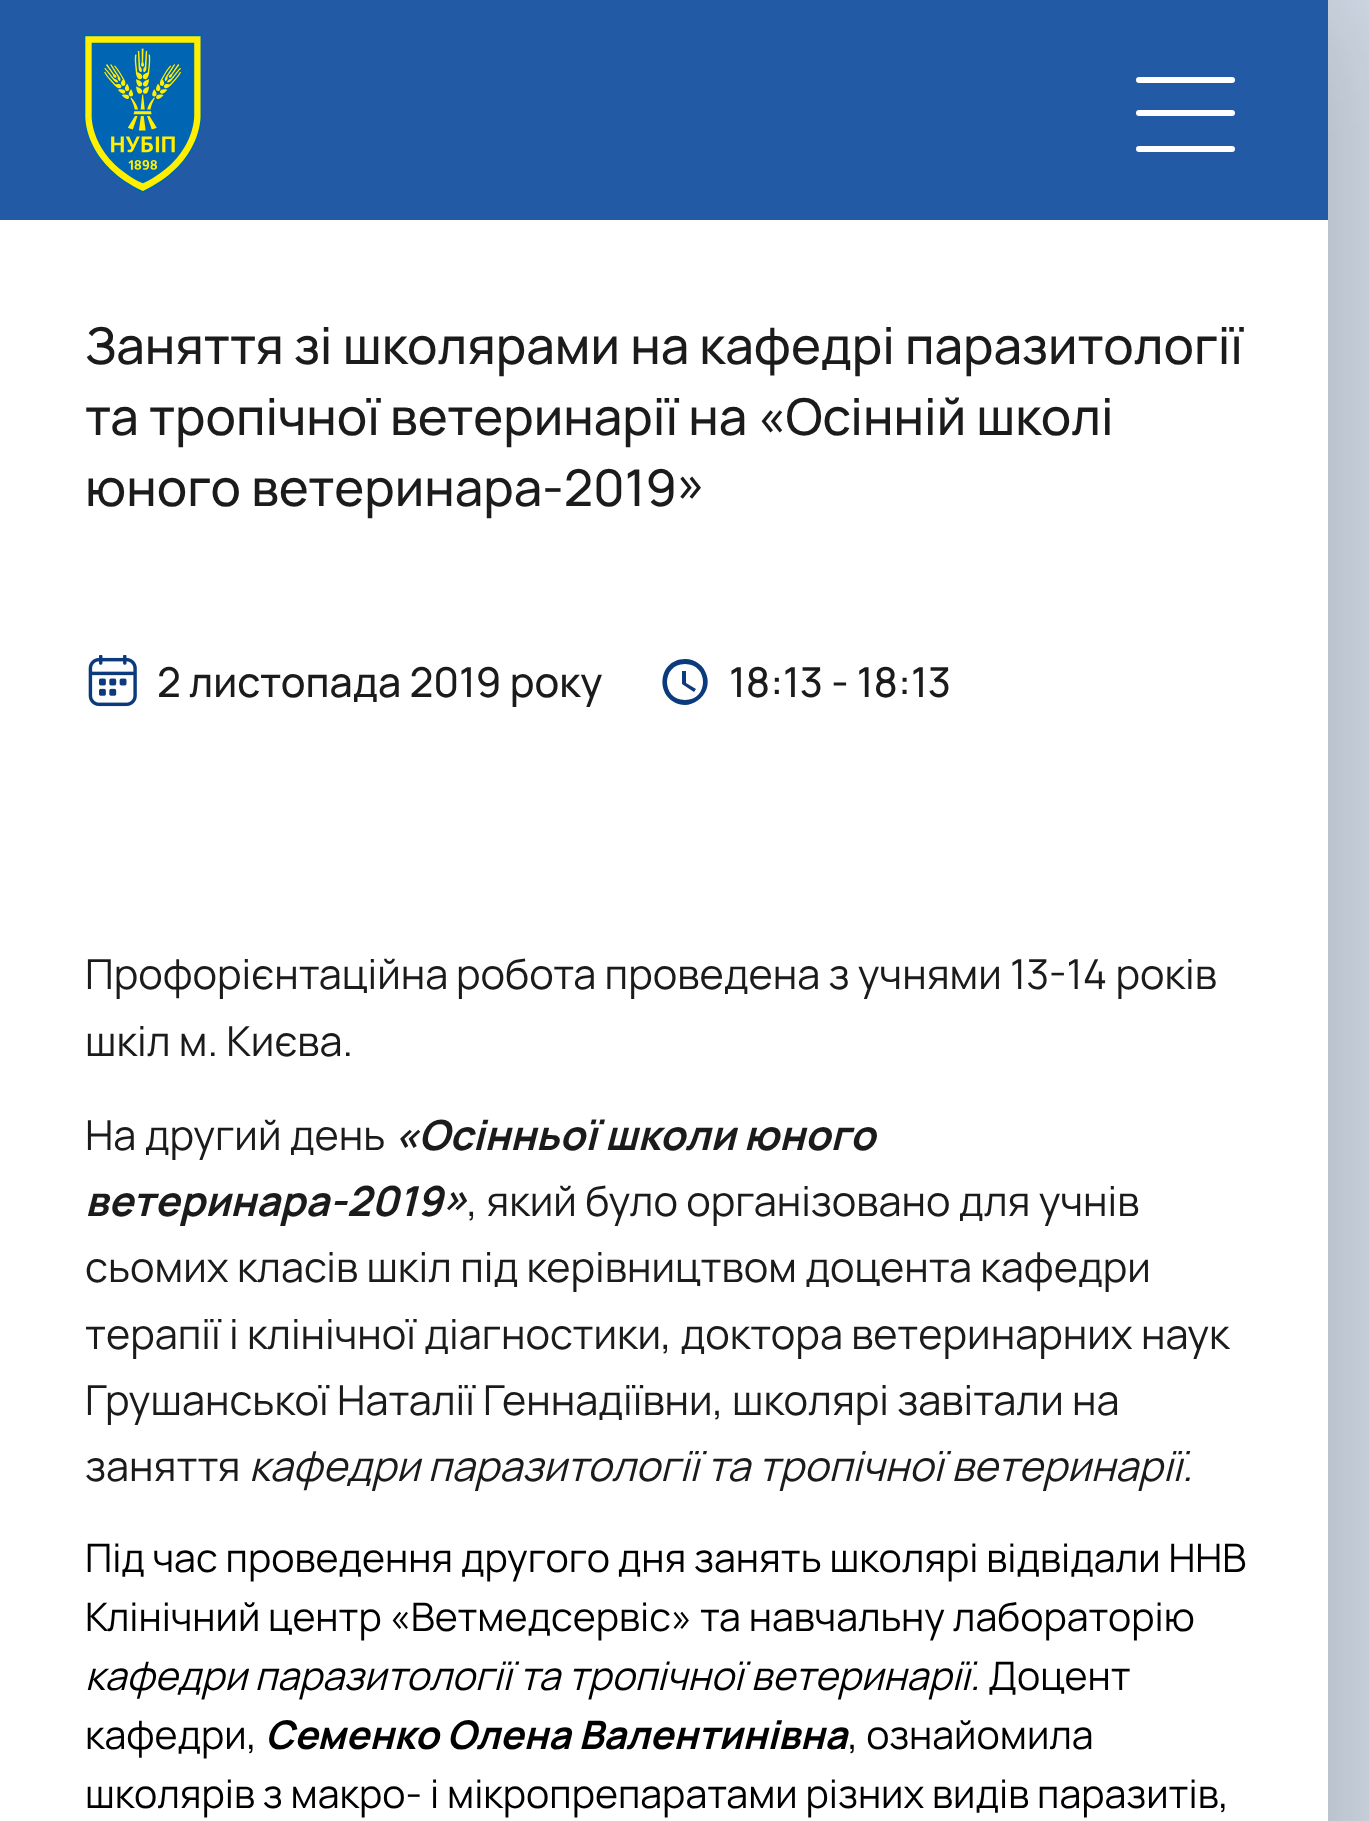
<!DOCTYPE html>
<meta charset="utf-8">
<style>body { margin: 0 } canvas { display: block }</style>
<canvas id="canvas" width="1369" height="1821"></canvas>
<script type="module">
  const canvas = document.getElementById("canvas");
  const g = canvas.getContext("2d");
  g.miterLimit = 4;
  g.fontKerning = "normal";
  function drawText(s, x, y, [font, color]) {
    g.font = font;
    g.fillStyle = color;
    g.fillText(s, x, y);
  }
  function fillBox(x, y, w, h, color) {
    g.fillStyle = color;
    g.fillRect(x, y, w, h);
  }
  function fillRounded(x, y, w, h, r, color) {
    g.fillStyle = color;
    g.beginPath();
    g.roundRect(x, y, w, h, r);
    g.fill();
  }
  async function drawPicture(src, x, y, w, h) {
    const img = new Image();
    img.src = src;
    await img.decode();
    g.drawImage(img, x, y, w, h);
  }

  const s1 = ["500 50.75px Manrope", "#1B1B1B"];
  const s2 = ["500 41.25px Manrope", "#1B1B1B"];
  const s3 = ["41.45px Manrope", "#1B1B1B"];
  const s4 = ["italic bold 41.45px Manrope", "#1B1B1B"];
  const s5 = ["italic 41.45px Manrope", "#1B1B1B"];
  const s6 = ["39.3px Manrope", "#000000"];
  const s7 = ["italic 39.3px Manrope", "#000000"];
  const s8 = ["italic bold 39.3px Manrope", "#000000"];

  fillBox(0, 0, 1369, 1821, "#D0D9E5");
  g.fillStyle = "rgba(0, 0, 0, 0.2)";
  g.filter = "blur(69px)";
  g.beginPath();
  g.rect(0, 0, 1328, 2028);
  g.fill();
  g.filter = "none";
  fillBox(0, 0, 1328, 220, "#235AA6");
  await drawPicture("pic1.png", 83, 34, 120, 159);
  fillRounded(1136, 77, 99, 6, 3, "#FFFFFF");
  fillRounded(1136, 110, 99, 6, 3, "#FFFFFF");
  fillRounded(1136, 146, 99, 6, 3, "#FFFFFF");
  fillBox(0, 220, 1328, 1601, "#FFFFFF");
  drawText("Заняття зі школярами на кафедрі паразитології", 85, 364, s1);
  drawText("та тропічної ветеринарії на «Осінній школі", 85, 435, s1);
  drawText("юного ветеринара-2019»", 85, 506, s1);
  await drawPicture("pic2.png", 88, 655, 49, 52);
  drawText("2 листопада 2019 року", 157, 697, s2);
  g.fillStyle = "#0C3B7D";
  g.beginPath();
  g.moveTo(685, 700);
  g.bezierCurveTo(709, 700, 709, 664, 685, 664);
  g.bezierCurveTo(661, 664, 661, 700, 685, 700);
  g.closePath();
  g.moveTo(685, 659);
  g.bezierCurveTo(707, 659, 717, 688, 697, 701);
  g.bezierCurveTo(694, 703, 689, 705, 685, 705);
  g.bezierCurveTo(654, 703, 656, 659, 685, 659);
  g.closePath();
  g.moveTo(686, 671);
  g.lineTo(686, 683);
  g.lineTo(696, 689);
  g.lineTo(694, 692);
  g.lineTo(682, 684);
  g.lineTo(682, 671);
  g.closePath();
  g.fill();
  drawText("18:13 - 18:13", 729, 697, s2);
  drawText("Профорієнтаційна", 85, 989, s3);
  drawText("робота проведена з учнями 13-14 років", 456, 989, s3);
  drawText("шкіл м. Києва.", 85, 1056, s3);
  drawText("На другий день", 85, 1150, s3);
  drawText("«Осінньої школи юного", 394, 1150, s4);
  drawText("ветеринара-2019»", 85, 1216, s4);
  drawText(", який було організовано для учнів", 467, 1216, s3);
  drawText("сьомих класів шкіл під керівництвом доцента кафедри", 85, 1282, s3);
  drawText("терапії і клінічної діагностики, доктора ветеринарних", 85, 1349, s3);
  drawText("наук", 1141, 1349, s3);
  drawText("Грушанської Наталії", 85, 1415, s3);
  drawText("Геннадіївни, школярі завітали на", 483, 1415, s3);
  drawText("заняття", 85, 1481, s3);
  drawText("кафедри паразитології та тропічної ветеринарії.", 249, 1481, s5);
  drawText("Під час проведення другого дня занять школярі відвідали ННВ", 85, 1572, s6);
  drawText("Клінічний центр «Ветмедсервіс» та навчальну лабораторію", 85, 1631, s6);
  drawText("кафедри паразитології та тропічної ветеринарії.", 85, 1690, s7);
  drawText("Доцент", 988, 1690, s6);
  drawText("кафедри,", 85, 1749, s6);
  drawText("Семенко Олена Валентинівна", 265, 1749, s8);
  drawText(", ознайомила", 848, 1749, s6);
  drawText("школярів з макро- і мікропрепаратами різних видів паразитів,", 85, 1808, s6);
</script>
